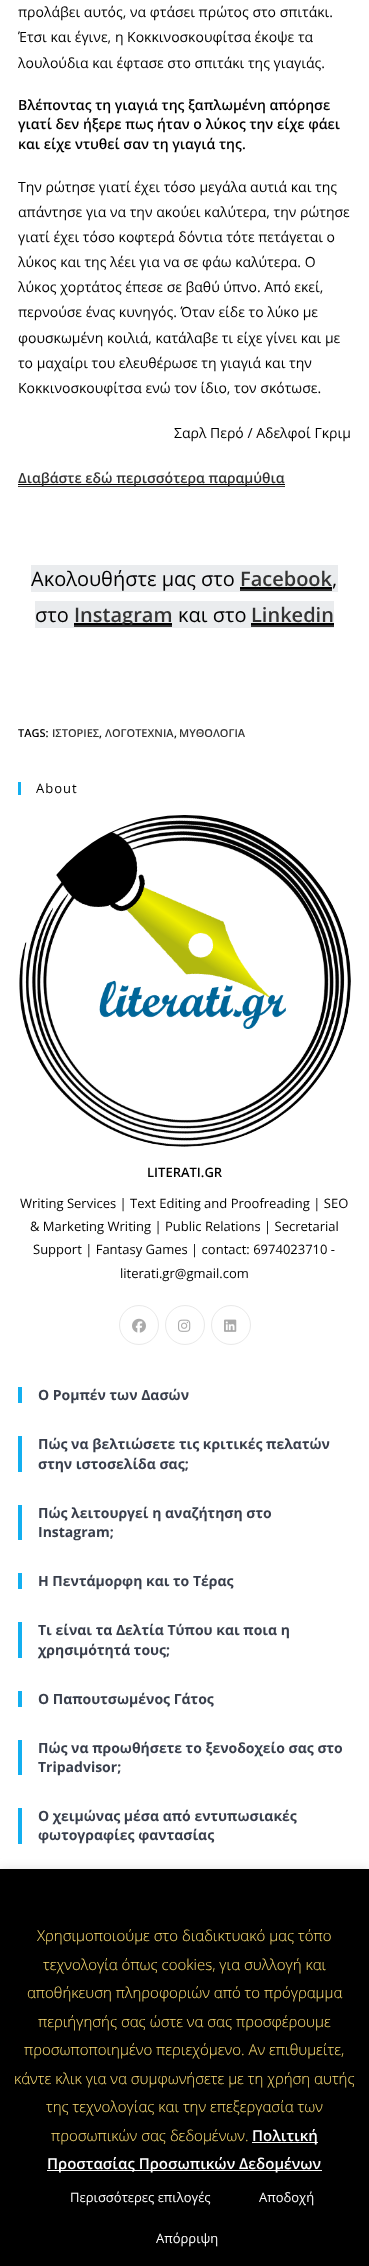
<!DOCTYPE html>
<meta charset="utf-8">
<style>body { margin: 0 } canvas { display: block }</style>
<canvas id="canvas" width="369" height="2266"></canvas>
<script type="module">
  const canvas = document.getElementById("canvas");
  const g = canvas.getContext("2d");
  g.miterLimit = 4;
  g.fontKerning = "normal";
  function drawText(s, x, y, [font, color]) {
    g.font = font;
    g.fillStyle = color;
    g.fillText(s, x, y);
  }
  function fillBox(x, y, w, h, color) {
    g.fillStyle = color;
    g.fillRect(x, y, w, h);
  }
  async function drawPicture(src, x, y, w, h) {
    const img = new Image();
    img.src = src;
    await img.decode();
    g.drawImage(img, x, y, w, h);
  }

  const s1 = ["14px Open Sans", "#000000"];
  const s2 = ["600 14px Open Sans", "#000000"];
  const s3 = ["600 14px Open Sans", "#333333"];
  const s4 = ["20px Open Sans", "#000000"];
  const s5 = ["600 20px Open Sans", "#333333"];
  const s6 = ["600 11px Open Sans", "#000000"];
  const s7 = ["600 11px Open Sans", "#333333"];
  const s8 = ["13px Open Sans", "#000000"];
  const s9 = ["600 13px Open Sans", "#000000"];
  const s10 = ["bold 14px Open Sans", "#393F4C"];
  const s11 = ["300 15px Open Sans", "#FFE074"];
  const s12 = ["600 15px Open Sans", "#FFFFFF"];
  const s13 = ["13px Open Sans", "#FFFFFF"];

  fillBox(0, 0, 369, 2266, "#FFFFFF");
  drawText("προλάβει αυτός, να φτάσει πρώτος στο σπιτάκι.", 18, 17, s1);
  drawText("Έτσι και έγινε, η Κοκκινοσκουφίτσα έκοψε τα", 18, 42, s1);
  drawText("λουλούδια και έφτασε στο σπιτάκι της γιαγιάς.", 18, 68, s1);
  drawText("Βλέποντας τη γιαγιά της ξαπλωμένη απόρησε", 18, 110, s2);
  drawText("γιατί δεν ήξερε πως ήταν ο λύκος την είχε φάει", 18, 129, s2);
  drawText("και είχε ντυθεί σαν τη γιαγιά της.", 18, 149, s2);
  drawText("Την ρώτησε γιατί έχει τόσο μεγάλα αυτιά και της", 18, 192, s1);
  drawText("απάντησε για να την ακούει καλύτερα, την ρώτησε", 18, 217, s1);
  drawText("γιατί έχει τόσο κοφτερά δόντια τότε πετάγεται ο", 18, 242, s1);
  drawText("λύκος και της λέει για να σε φάω καλύτερα. Ο", 18, 267, s1);
  drawText("λύκος χορτάτος έπεσε σε βαθύ ύπνο. Από εκεί,", 18, 292, s1);
  drawText("περνούσε ένας κυνηγός. Όταν είδε το λύκο με", 18, 317, s1);
  drawText("φουσκωμένη κοιλιά, κατάλαβε τι είχε γίνει και με", 18, 343, s1);
  drawText("το μαχαίρι του ελευθέρωσε τη γιαγιά και την", 18, 368, s1);
  drawText("Κοκκινοσκουφίτσα ενώ τον ίδιο, τον σκότωσε.", 18, 393, s1);
  drawText("Σαρλ Περό / Αδελφοί Γκριμ", 174, 438, s1);
  fillBox(18, 486, 267, 1, "#333333");
  fillBox(18, 484, 267, 1, "#000000");
  drawText("Διαβάστε εδώ περισσότερα παραμύθια", 18, 483, s3);
  fillBox(31, 565, 307, 27, "#EAECEE");
  drawText("Ακολουθήστε μας στo", 31, 586, s4);
  drawText("Facebook", 240, 586, s5);
  drawText(",", 332, 586, s4);
  fillBox(240, 589, 92, 2, "#333333");
  fillBox(240, 587, 92, 2, "#000000");
  fillBox(35, 601, 299, 27, "#EAECEE");
  drawText("στο", 35, 622, s4);
  fillBox(74, 625, 98, 2, "#333333");
  fillBox(74, 623, 98, 2, "#000000");
  drawText("Instagram", 74, 622, s5);
  drawText("και στο", 178, 622, s4);
  drawText("Linkedin", 251, 622, s5);
  fillBox(251, 625, 83, 2, "#333333");
  fillBox(251, 623, 83, 2, "#000000");
  drawText("TAGS:", 18, 737, s6);
  drawText("ΙΣΤΟΡΙΕΣ", 52, 737, s7);
  drawText(",", 99, 737, s6);
  drawText("ΛΟΓΟΤΕΧΝΙΑ", 105, 737, s7);
  drawText(",", 174, 737, s6);
  drawText("ΜΥΘΟΛΟΓΙΑ", 179, 737, s7);
  fillBox(18, 782, 3, 13, "#13AFF0");
  g.letterSpacing = "1px";
  drawText("About", 36, 793, s8);
  await drawPicture("pic1.png", 19, 815, 332, 332);
  g.letterSpacing = "0px";
  drawText("LITERATI.GR", 147, 1177, s9);
  drawText("Writing Services | Text Editing and Proofreading | SEO", 20, 1208, s8);
  drawText("& Marketing Writing | Public Relations | Secretarial", 30, 1231, s8);
  drawText("Support | Fantasy Games | contact: 6974023710 -", 33, 1254, s8);
  drawText("literati.gr@gmail.com", 120, 1278, s8);
  g.beginPath();
  g.arc(139, 1325, 19.5, 0, Math.PI * 2);
  g.strokeStyle = "#E9E9E9";
  g.stroke();
  await drawPicture("pic2.png", 132, 1318, 14, 15);
  g.beginPath();
  g.arc(185, 1325, 19.5, 0, Math.PI * 2);
  g.stroke();
  await drawPicture("pic3.png", 178, 1319, 13, 13);
  g.beginPath();
  g.arc(231, 1325, 19.5, 0, Math.PI * 2);
  g.stroke();
  await drawPicture("pic4.png", 224, 1319, 13, 13);
  fillBox(18, 1387, 4, 16, "#13AFF0");
  drawText("Ο Ρομπέν των Δασών", 38, 1400, s10);
  fillBox(18, 1436, 4, 36, "#13AFF0");
  drawText("Πώς να βελτιώσετε τις κριτικές πελατών", 38, 1449, s10);
  drawText("στην ιστοσελίδα σας;", 38, 1469, s10);
  fillBox(18, 1505, 4, 35, "#13AFF0");
  drawText("Πώς λειτουργεί η αναζήτηση στο", 38, 1518, s10);
  drawText("Instagram;", 38, 1537, s10);
  fillBox(18, 1573, 4, 16, "#13AFF0");
  drawText("Η Πεντάμορφη και το Τέρας", 38, 1586, s10);
  fillBox(18, 1622, 4, 36, "#13AFF0");
  drawText("Τι είναι τα Δελτία Τύπου και ποια η", 38, 1635, s10);
  drawText("χρησιμότητά τους;", 38, 1655, s10);
  fillBox(18, 1691, 4, 16, "#13AFF0");
  drawText("Ο Παπουτσωμένος Γάτος", 38, 1704, s10);
  fillBox(18, 1740, 4, 35, "#13AFF0");
  drawText("Πώς να προωθήσετε το ξενοδοχείο σας στο", 38, 1753, s10);
  drawText("Tripadvisor;", 38, 1772, s10);
  fillBox(18, 1808, 4, 36, "#13AFF0");
  drawText("Ο χειμώνας μέσα από εντυπωσιακές", 38, 1821, s10);
  drawText("φωτογραφίες φαντασίας", 38, 1840, s10);
  g.fillStyle = "rgba(172, 171, 171, 0.3)";
  g.filter = "blur(5px)";
  g.beginPath();
  g.rect(0, 1868, 369, 397);
  g.fill();
  g.filter = "none";
  fillBox(0, 1869, 369, 397, "#000000");
  drawText("Χρησιμοποιούμε στο διαδικτυακό μας τόπο", 37, 1941, s11);
  drawText("τεχνολογία όπως cookies, για συλλογή και", 43, 1970, s11);
  drawText("αποθήκευση πληροφοριών από το πρόγραμμα", 27, 1998, s11);
  drawText("περιήγησής σας ώστε να σας προσφέρουμε", 38, 2027, s11);
  drawText("προσωποποιημένο περιεχόμενο. Αν επιθυμείτε,", 24, 2055, s11);
  drawText("κάντε κλικ για να συμφωνήσετε με τη χρήση αυτής", 14, 2084, s11);
  drawText("της τεχνολογίας και την επεξεργασία των", 46, 2112, s11);
  drawText("προσωπικών σας δεδομένων.", 51, 2141, s11);
  fillBox(252, 2142, 66, 1, "#FFFFFF");
  drawText("Πολιτική", 252, 2141, s12);
  fillBox(47, 2170, 275, 1, "#FFFFFF");
  drawText("Προστασίας Προσωπικών Δεδομένων", 47, 2169, s12);
  drawText("Περισσότερες επιλογές", 70, 2202, s13);
  drawText("Αποδοχή", 259, 2202, s13);
  drawText("Απόρριψη", 156, 2243, s13);
</script>
